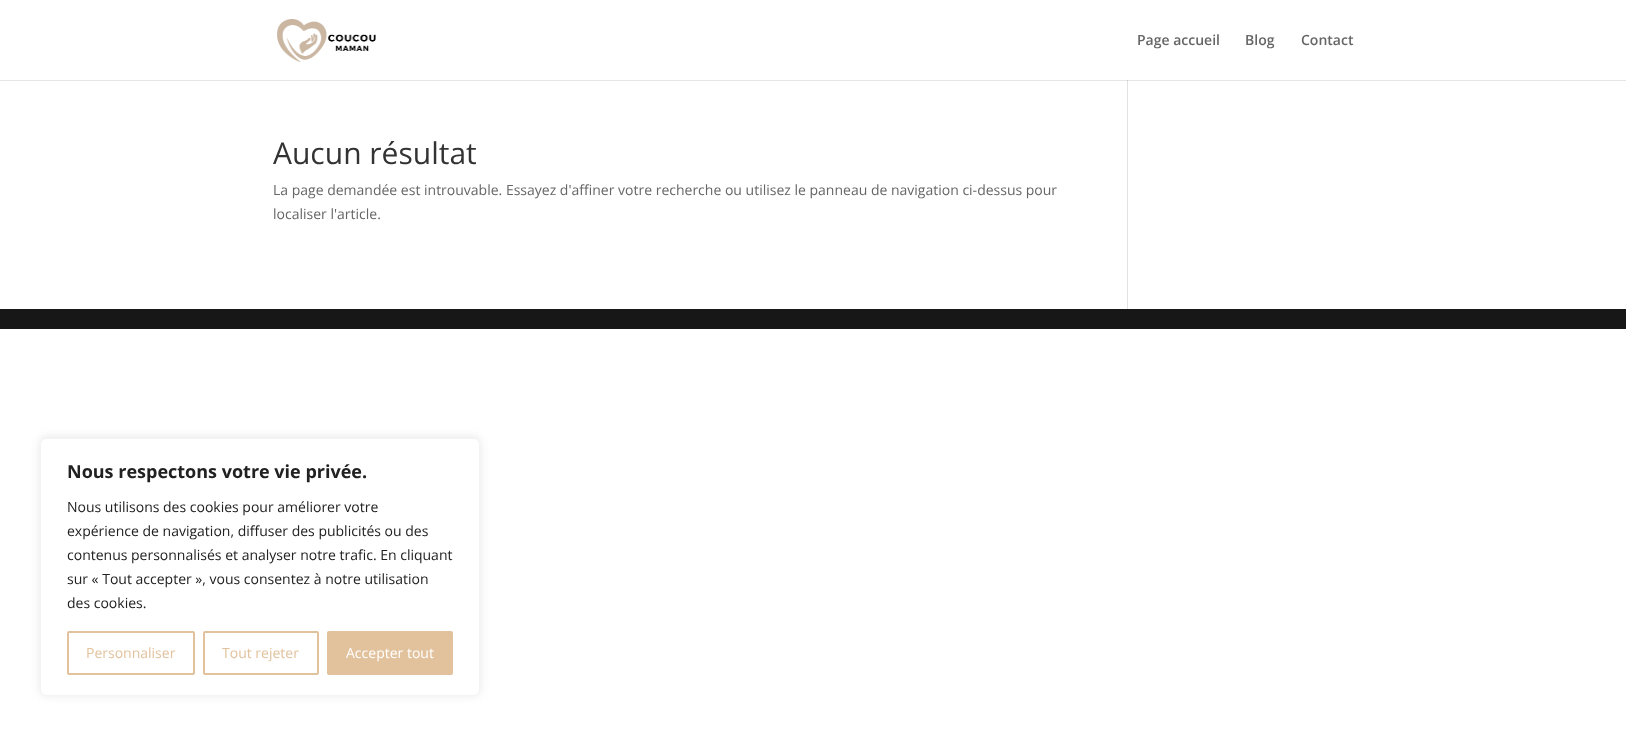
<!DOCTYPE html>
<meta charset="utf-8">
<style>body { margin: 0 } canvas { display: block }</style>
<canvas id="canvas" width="1626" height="736"></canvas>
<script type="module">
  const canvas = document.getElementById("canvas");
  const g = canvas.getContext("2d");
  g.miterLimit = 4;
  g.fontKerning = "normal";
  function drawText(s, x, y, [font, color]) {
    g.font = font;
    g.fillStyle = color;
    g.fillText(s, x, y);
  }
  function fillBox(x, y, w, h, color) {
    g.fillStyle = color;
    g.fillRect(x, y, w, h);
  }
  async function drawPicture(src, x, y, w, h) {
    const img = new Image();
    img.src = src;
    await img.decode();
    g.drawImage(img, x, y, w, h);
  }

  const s1 = ["600 14px Open Sans", "#666666"];
  const s2 = ["30px Open Sans", "#333333"];
  const s3 = ["14px Open Sans", "#666666"];
  const s4 = ["bold 18px Open Sans", "#212121"];
  const s5 = ["14px Open Sans", "#212121"];
  const s6 = ["14px Open Sans", "#E2C29D"];
  const s7 = ["14px Open Sans", "#FFFFFF"];

  fillBox(0, 0, 1626, 736, "#FFFFFF");
  fillBox(0, 80, 1626, 1, "#E6E6E6");
  await drawPicture("pic1.png", 277, 19, 99, 43);
  drawText("Page accueil", 1137, 45, s1);
  drawText("Blog", 1245, 45, s1);
  drawText("Contact", 1301, 45, s1);
  drawText("Aucun résultat", 273, 164, s2);
  drawText("La page demandée est introuvable. Essayez d'affiner votre recherche ou utilisez le panneau de navigation ci-dessus pour", 273, 195, s3);
  drawText("localiser l'article.", 273, 219, s3);
  fillBox(1127, 80, 1, 229, "#E2E2E2");
  fillBox(1127, 80, 1, 1, "#CBCBCB");
  fillBox(0, 309, 1626, 20, "#171717");
  g.fillStyle = "rgba(172, 171, 171, 0.3)";
  g.filter = "blur(5px)";
  g.beginPath();
  g.roundRect(40, 437, 440, 258, 6);
  g.fill();
  g.filter = "none";
  g.fillStyle = "#FFFFFF";
  g.beginPath();
  g.roundRect(40.5, 438.5, 439, 257, 5.5);
  g.fill();
  g.strokeStyle = "#F4F4F4";
  g.stroke();
  drawText("Nous respectons votre vie privée.", 67, 478, s4);
  drawText("Nous utilisons des cookies pour améliorer votre", 67, 512, s5);
  drawText("expérience de navigation, diffuser des publicités ou des", 67, 536, s5);
  drawText("contenus personnalisés et analyser notre trafic. En cliquant", 67, 560, s5);
  drawText("sur « Tout accepter », vous consentez à notre utilisation", 67, 584, s5);
  drawText("des cookies.", 67, 608, s5);
  g.beginPath();
  g.roundRect(68, 632, 126, 42, 1);
  g.strokeStyle = "#E2C29D";
  g.lineWidth = 2;
  g.stroke();
  drawText("Personnaliser", 86, 658, s6);
  g.beginPath();
  g.roundRect(204, 632, 114, 42, 1);
  g.stroke();
  drawText("Tout rejeter", 222, 658, s6);
  g.beginPath();
  g.roundRect(328, 632, 124, 42, 1);
  g.fill();
  g.stroke();
  drawText("Accepter tout", 346, 658, s7);
</script>
